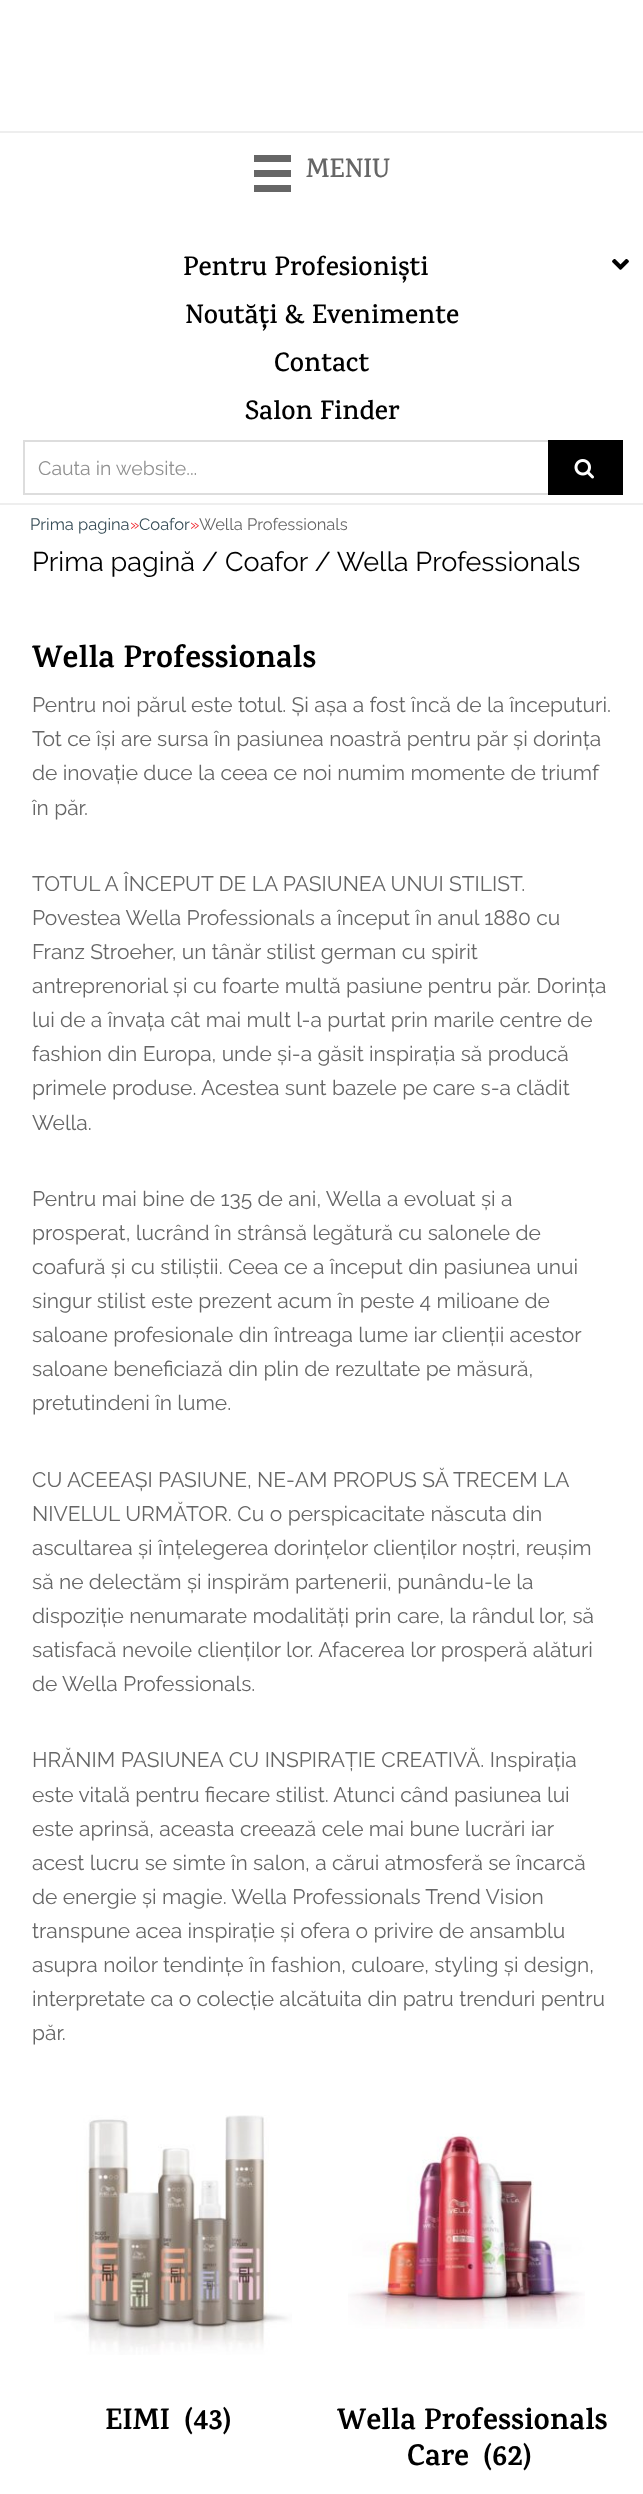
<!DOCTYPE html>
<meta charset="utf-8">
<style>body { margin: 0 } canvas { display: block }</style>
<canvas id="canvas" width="643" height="2494"></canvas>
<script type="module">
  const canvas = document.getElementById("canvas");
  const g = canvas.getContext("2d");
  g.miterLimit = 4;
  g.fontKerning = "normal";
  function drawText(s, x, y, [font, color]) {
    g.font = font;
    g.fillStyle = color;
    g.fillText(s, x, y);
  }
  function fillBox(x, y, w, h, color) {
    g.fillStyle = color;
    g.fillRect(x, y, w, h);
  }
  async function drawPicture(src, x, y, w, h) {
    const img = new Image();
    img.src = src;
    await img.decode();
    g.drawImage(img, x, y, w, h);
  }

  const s1 = ["600 27px Karma", "#666666"];
  const s2 = ["600 27px Karma", "#000000"];
  const s3 = ["19.5px Raleway", "#919191"];
  const s4 = ["16.5px Raleway", "#364C56"];
  const s5 = ["16.5px Raleway", "#ED1C24"];
  const s6 = ["16.5px Raleway", "#666666"];
  const s7 = ["27px Raleway", "#000000"];
  const s8 = ["bold 31.5px Karma", "#000000"];
  const s9 = ["21px Raleway", "#666666"];
  const s10 = ["bold 30px Karma", "#000000"];

  fillBox(0, 0, 643, 2494, "#FFFFFF");
  fillBox(0, 131, 643, 2, "#EEEEEE");
  fillBox(0, 503, 643, 2, "#EEEEEE");
  fillBox(254, 155, 37, 7, "#666666");
  fillBox(254, 170, 37, 7, "#666666");
  fillBox(254, 185, 37, 7, "#666666");
  drawText("MENIU", 306, 177, s1);
  drawText("Pentru Profesioniști", 183, 275, s2);
  await drawPicture("pic1.png", 612, 259, 17, 11);
  drawText("Noutăți & Evenimente", 185, 323, s2);
  drawText("Contact", 274, 371, s2);
  drawText("Salon Finder", 245, 419, s2);
  g.strokeStyle = "#DDDDDD";
  g.lineWidth = 2;
  g.strokeRect(24, 441, 598, 53);
  drawText("Cauta in website...", 38, 475, s3);
  fillBox(548, 440, 75, 55, "#000000");
  await drawPicture("pic2.png", 574, 459, 20, 20);
  drawText("Prima pagina", 30, 530, s4);
  drawText("»", 130, 530, s5);
  drawText("Coafor", 139, 530, s4);
  drawText("»", 190, 530, s5);
  drawText("Wella Professionals", 199, 530, s6);
  drawText("Prima pagină / Coafor / Wella Professionals", 32, 571, s7);
  drawText("Wella Professionals", 32, 667, s8);
  drawText("Pentru noi părul este totul. Și așa a fost încă de la începuturi.", 32, 712, s9);
  drawText("Tot ce își are sursa în pasiunea noastră pentru păr și dorința", 32, 746, s9);
  drawText("de inovație duce la ceea ce noi numim momente de triumf", 32, 780, s9);
  drawText("în păr.", 32, 815, s9);
  drawText("TOTUL A ÎNCEPUT DE LA PASIUNEA UNUI STILIST.", 32, 891, s9);
  drawText("Povestea Wella Professionals a început în anul 1880 cu", 32, 925, s9);
  drawText("Franz Stroeher, un tânăr stilist german cu spirit", 32, 959, s9);
  drawText("antreprenorial și cu foarte multă pasiune pentru păr. Dorința", 32, 993, s9);
  drawText("lui de a învața cât mai mult l-a purtat prin marile centre de", 32, 1027, s9);
  drawText("fashion din Europa, unde și-a găsit inspirația să producă", 32, 1061, s9);
  drawText("primele produse. Acestea sunt bazele pe care s-a clădit", 32, 1095, s9);
  drawText("Wella.", 32, 1130, s9);
  drawText("Pentru mai bine de 135 de ani, Wella a evoluat și a", 32, 1206, s9);
  drawText("prosperat, lucrând în strânsă legătură cu salonele de", 32, 1240, s9);
  drawText("coafură și cu stiliștii. Ceea ce a început din pasiunea unui", 32, 1274, s9);
  drawText("singur stilist este prezent acum în peste 4 milioane de", 32, 1308, s9);
  drawText("saloane profesionale din întreaga lume iar clienții acestor", 32, 1342, s9);
  drawText("saloane beneficiază din plin de rezultate pe măsură,", 32, 1376, s9);
  drawText("pretutindeni în lume.", 32, 1410, s9);
  drawText("CU ACEEAȘI PASIUNE, NE-AM PROPUS SĂ TRECEM LA", 32, 1487, s9);
  g.wordSpacing = "0.25px";
  drawText("NIVELUL URMĂTOR. Cu o perspicacitate născuta din", 32, 1521, s9);
  g.wordSpacing = "0px";
  drawText("ascultarea și înțelegerea dorințelor clienților noștri, reușim", 32, 1555, s9);
  drawText("să ne delectăm și inspirăm partenerii, punându-le la", 32, 1589, s9);
  drawText("dispoziție nenumarate modalități prin care, la rândul lor, să", 32, 1623, s9);
  drawText("satisfacă nevoile clienților lor. Afacerea lor prosperă alături", 32, 1657, s9);
  drawText("de Wella Professionals.", 32, 1691, s9);
  g.wordSpacing = "0.25px";
  drawText("HRĂNIM PASIUNEA CU INSPIRAȚIE CREATIVĂ. Inspirația", 32, 1767, s9);
  g.wordSpacing = "0px";
  drawText("este vitală pentru fiecare stilist. Atunci când pasiunea lui", 32, 1802, s9);
  drawText("este aprinsă, aceasta creează cele mai bune lucrări iar", 32, 1836, s9);
  drawText("acest lucru se simte în salon, a cărui atmosferă se încarcă", 32, 1870, s9);
  drawText("de energie și magie. Wella Professionals Trend Vision", 32, 1904, s9);
  drawText("transpune acea inspirație și ofera o privire de ansamblu", 32, 1938, s9);
  drawText("asupra noilor tendințe în fashion, culoare, styling și design,", 32, 1972, s9);
  drawText("interpretate ca o colecție alcătuita din patru trenduri pentru", 32, 2006, s9);
  drawText("păr.", 32, 2040, s9);
  await drawPicture("pic3.png", 54, 2115, 238, 240);
  drawText("EIMI", 105, 2429, s10);
  drawText("(43)", 184, 2429, s10);
  await drawPicture("pic4.png", 348, 2133, 237, 196);
  drawText("Wella Professionals", 337, 2429, s10);
  drawText("Care", 407, 2465, s10);
  drawText("(62)", 483, 2465, s10);
</script>
